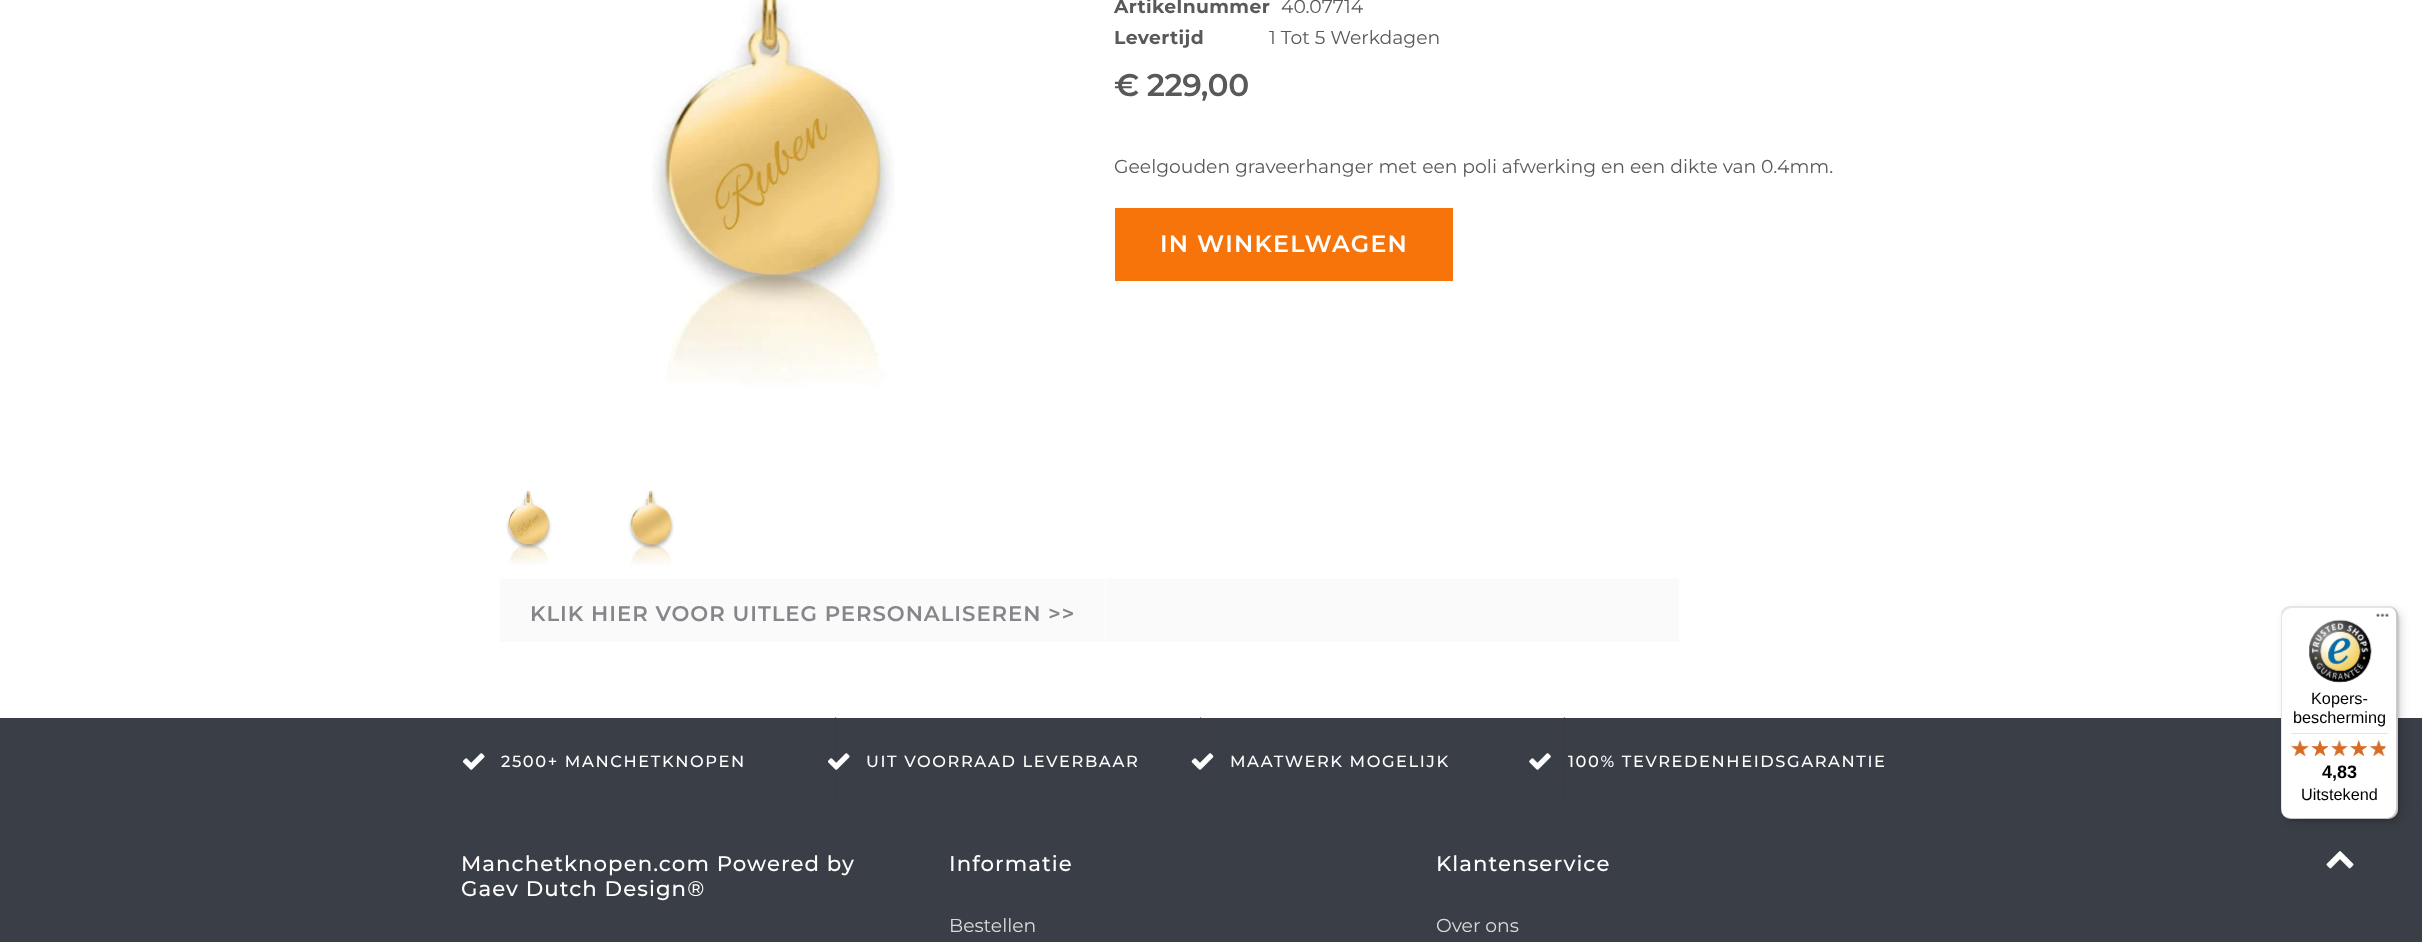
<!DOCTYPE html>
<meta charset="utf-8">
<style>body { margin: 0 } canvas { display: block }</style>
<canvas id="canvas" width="2422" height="942"></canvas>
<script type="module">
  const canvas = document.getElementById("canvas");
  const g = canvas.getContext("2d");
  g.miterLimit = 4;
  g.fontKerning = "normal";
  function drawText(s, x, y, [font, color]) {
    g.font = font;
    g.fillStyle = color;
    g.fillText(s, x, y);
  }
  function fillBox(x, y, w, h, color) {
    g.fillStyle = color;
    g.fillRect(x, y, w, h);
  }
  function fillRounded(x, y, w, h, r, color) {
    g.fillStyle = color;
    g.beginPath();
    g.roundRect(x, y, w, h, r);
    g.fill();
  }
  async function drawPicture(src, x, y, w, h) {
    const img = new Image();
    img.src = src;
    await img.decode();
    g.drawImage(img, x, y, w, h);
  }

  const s1 = ["bold 18.75px Montserrat", "#59595B"];
  const s2 = ["18.75px Montserrat", "#59595B"];
  const s3 = ["600 31.25px Montserrat", "#59595B"];
  const s4 = ["600 23.75px Montserrat", "#FFFFFF"];
  const s5 = ["600 21.25px Montserrat", "#848689"];
  const s6 = ["500 16.25px Montserrat", "#FFFFFF"];
  const s7 = ["500 21.25px Montserrat", "#FFFFFF"];
  const s8 = ["18.75px Montserrat", "#DCDCDC"];
  const s9 = ["16.25px Liberation Sans", "#000000"];
  const s10 = ["bold 18px Liberation Sans", "#000000"];

  fillBox(0, 0, 2422, 942, "#FFFFFF");
  await drawPicture("pic1.png", 652, 0, 243, 386);
  await drawPicture("pic2.png", 506, 489, 46, 76);
  await drawPicture("pic3.png", 628, 489, 46, 77);
  g.letterSpacing = "0.4px";
  drawText("Artikelnummer", 1114, 13, s1);
  g.letterSpacing = "0px";
  drawText("40.07714", 1281, 13, s2);
  g.letterSpacing = "0.4px";
  drawText("Levertijd", 1114, 44, s1);
  g.letterSpacing = "0px";
  drawText("1 Tot 5 Werkdagen", 1269, 44, s2);
  g.letterSpacing = "-0.5px";
  drawText("€ 229,00", 1114, 96, s3);
  g.letterSpacing = "0px";
  drawText("Geelgouden graveerhanger met een poli afwerking en een dikte van 0.4mm.", 1114, 173, s2);
  fillBox(1115, 208, 338, 73, "#F6740A");
  g.letterSpacing = "1.25px";
  drawText("IN WINKELWAGEN", 1160, 252, s4);
  fillBox(500, 579, 1179, 63, "#FAFAFA");
  fillBox(1105, 579, 1, 64, "#FFFFFF");
  g.letterSpacing = "0.95px";
  drawText("KLIK HIER VOOR UITLEG PERSONALISEREN >>", 530, 621, s5);
  fillBox(0, 718, 2422, 224, "#3A3E46");
  g.beginPath();
  g.moveTo(0, 805.5);
  g.lineTo(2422.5, 805.5);
  g.strokeStyle = "#3C3C3C";
  g.lineWidth = 1.2;
  g.setLineDash([1.25, 1.25]);
  g.stroke();
  g.beginPath();
  g.moveTo(835.5, 717.5);
  g.lineTo(835.5, 805);
  g.stroke();
  await drawPicture("pic4.png", 462, 753, 23, 17);
  g.letterSpacing = "1.6px";
  drawText("2500+ MANCHETKNOPEN", 501, 767, s6);
  g.beginPath();
  g.moveTo(1200.5, 717.5);
  g.lineTo(1200.5, 805);
  g.stroke();
  await drawPicture("pic5.png", 827, 753, 23, 17);
  drawText("UIT VOORRAAD LEVERBAAR", 866, 767, s6);
  g.beginPath();
  g.moveTo(1564.5, 717.5);
  g.lineTo(1564.5, 805);
  g.stroke();
  await drawPicture("pic6.png", 1191, 753, 23, 17);
  drawText("MAATWERK MOGELIJK", 1230, 767, s6);
  await drawPicture("pic7.png", 1529, 753, 22, 17);
  drawText("100% TEVREDENHEIDSGARANTIE", 1568, 767, s6);
  g.letterSpacing = "1.05px";
  drawText("Manchetknopen.com Powered by", 461, 871, s7);
  drawText("Gaev Dutch Design®", 461, 896, s7);
  drawText("Informatie", 949, 871, s7);
  g.letterSpacing = "0px";
  drawText("Bestellen", 949, 932, s8);
  g.letterSpacing = "1.05px";
  drawText("Klantenservice", 1436, 871, s7);
  g.letterSpacing = "0px";
  drawText("Over ons", 1436, 932, s8);
  await drawPicture("pic8.png", 2326, 851, 28, 18);
  g.fillStyle = "rgba(0, 0, 0, 0.15)";
  g.filter = "blur(5px)";
  g.beginPath();
  g.roundRect(2285, 610, 116, 213, 10);
  g.fill();
  g.filter = "none";
  g.filter = "blur(1px)";
  g.beginPath();
  g.roundRect(2283, 608, 116, 212, 10);
  g.fill();
  g.filter = "none";
  fillRounded(2281, 606, 117, 213, 10, "#FFFFFF");
  g.fillStyle = "rgba(0, 0, 0, 0.1)";
  g.beginPath();
  g.moveTo(2292, 608);
  g.lineTo(2389, 608);
  g.bezierCurveTo(2392, 608, 2396, 610, 2397, 613);
  g.bezierCurveTo(2396, 609, 2392, 606, 2388, 606);
  g.lineTo(2291, 606);
  g.bezierCurveTo(2285, 606, 2281, 610, 2281, 616);
  g.lineTo(2281, 809);
  g.bezierCurveTo(2281, 812, 2282, 815, 2284, 817);
  g.bezierCurveTo(2283, 815, 2282, 813, 2282, 810);
  g.lineTo(2282, 618);
  g.bezierCurveTo(2282, 612, 2287, 608, 2292, 608);
  g.closePath();
  g.fill();
  g.fillStyle = "rgba(0, 0, 0, 0.2)";
  g.beginPath();
  g.moveTo(2283, 816);
  g.bezierCurveTo(2285, 818, 2288, 819, 2291, 819);
  g.lineTo(2388, 819);
  g.bezierCurveTo(2394, 819, 2398, 815, 2398, 809);
  g.lineTo(2398, 616);
  g.bezierCurveTo(2398, 612, 2396, 609, 2392, 607);
  g.bezierCurveTo(2395, 609, 2396, 612, 2396, 615);
  g.lineTo(2396, 808);
  g.bezierCurveTo(2396, 813, 2392, 818, 2386, 818);
  g.lineTo(2290, 818);
  g.bezierCurveTo(2287, 818, 2285, 817, 2283, 816);
  g.closePath();
  g.fill();
  g.fillStyle = "rgba(50, 50, 50, 0.2)";
  g.beginPath();
  g.moveTo(2283, 815);
  g.bezierCurveTo(2285, 818, 2288, 819, 2291, 819);
  g.lineTo(2388, 819);
  g.bezierCurveTo(2394, 819, 2398, 815, 2398, 809);
  g.lineTo(2398, 616);
  g.bezierCurveTo(2398, 610, 2394, 606, 2388, 606);
  g.lineTo(2387, 606);
  g.bezierCurveTo(2392, 606, 2397, 610, 2397, 616);
  g.lineTo(2397, 808);
  g.bezierCurveTo(2397, 814, 2392, 818, 2387, 818);
  g.lineTo(2290, 818);
  g.bezierCurveTo(2288, 818, 2285, 817, 2283, 815);
  g.closePath();
  g.fill();
  g.fillStyle = "rgba(255, 255, 255, 0.3)";
  g.beginPath();
  g.moveTo(2397, 616);
  g.bezierCurveTo(2397, 610, 2392, 606, 2387, 606);
  g.lineTo(2388, 606);
  g.bezierCurveTo(2394, 606, 2398, 610, 2398, 616);
  g.lineTo(2398, 809);
  g.bezierCurveTo(2398, 815, 2394, 819, 2388, 819);
  g.lineTo(2291, 819);
  g.bezierCurveTo(2285, 819, 2281, 815, 2281, 809);
  g.lineTo(2281, 808);
  g.bezierCurveTo(2281, 814, 2285, 818, 2291, 818);
  g.lineTo(2387, 818);
  g.bezierCurveTo(2392, 818, 2397, 814, 2397, 808);
  g.closePath();
  g.fill();
  await drawPicture("pic9.png", 2376, 613, 13, 4);
  await drawPicture("pic10.png", 2309, 619, 63, 64);
  drawText("Kopers-", 2311, 704, s9);
  drawText("bescherming", 2293, 723, s9);
  fillBox(2291, 733, 97, 1, "#E5E5E5");
  await drawPicture("pic11.png", 2291, 740, 18, 16);
  await drawPicture("pic12.png", 2311, 740, 18, 16);
  await drawPicture("pic13.png", 2331, 740, 17, 16);
  await drawPicture("pic14.png", 2350, 740, 17, 16);
  await drawPicture("pic15.png", 2370, 740, 17, 16);
  await drawPicture("pic16.png", 2291, 740, 18, 16);
  await drawPicture("pic17.png", 2311, 740, 18, 16);
  await drawPicture("pic18.png", 2331, 740, 17, 16);
  await drawPicture("pic19.png", 2350, 740, 17, 16);
  await drawPicture("pic20.png", 2370, 740, 15, 16);
  drawText("4,83", 2322, 778, s10);
  drawText("Uitstekend", 2301, 800, s9);
</script>
